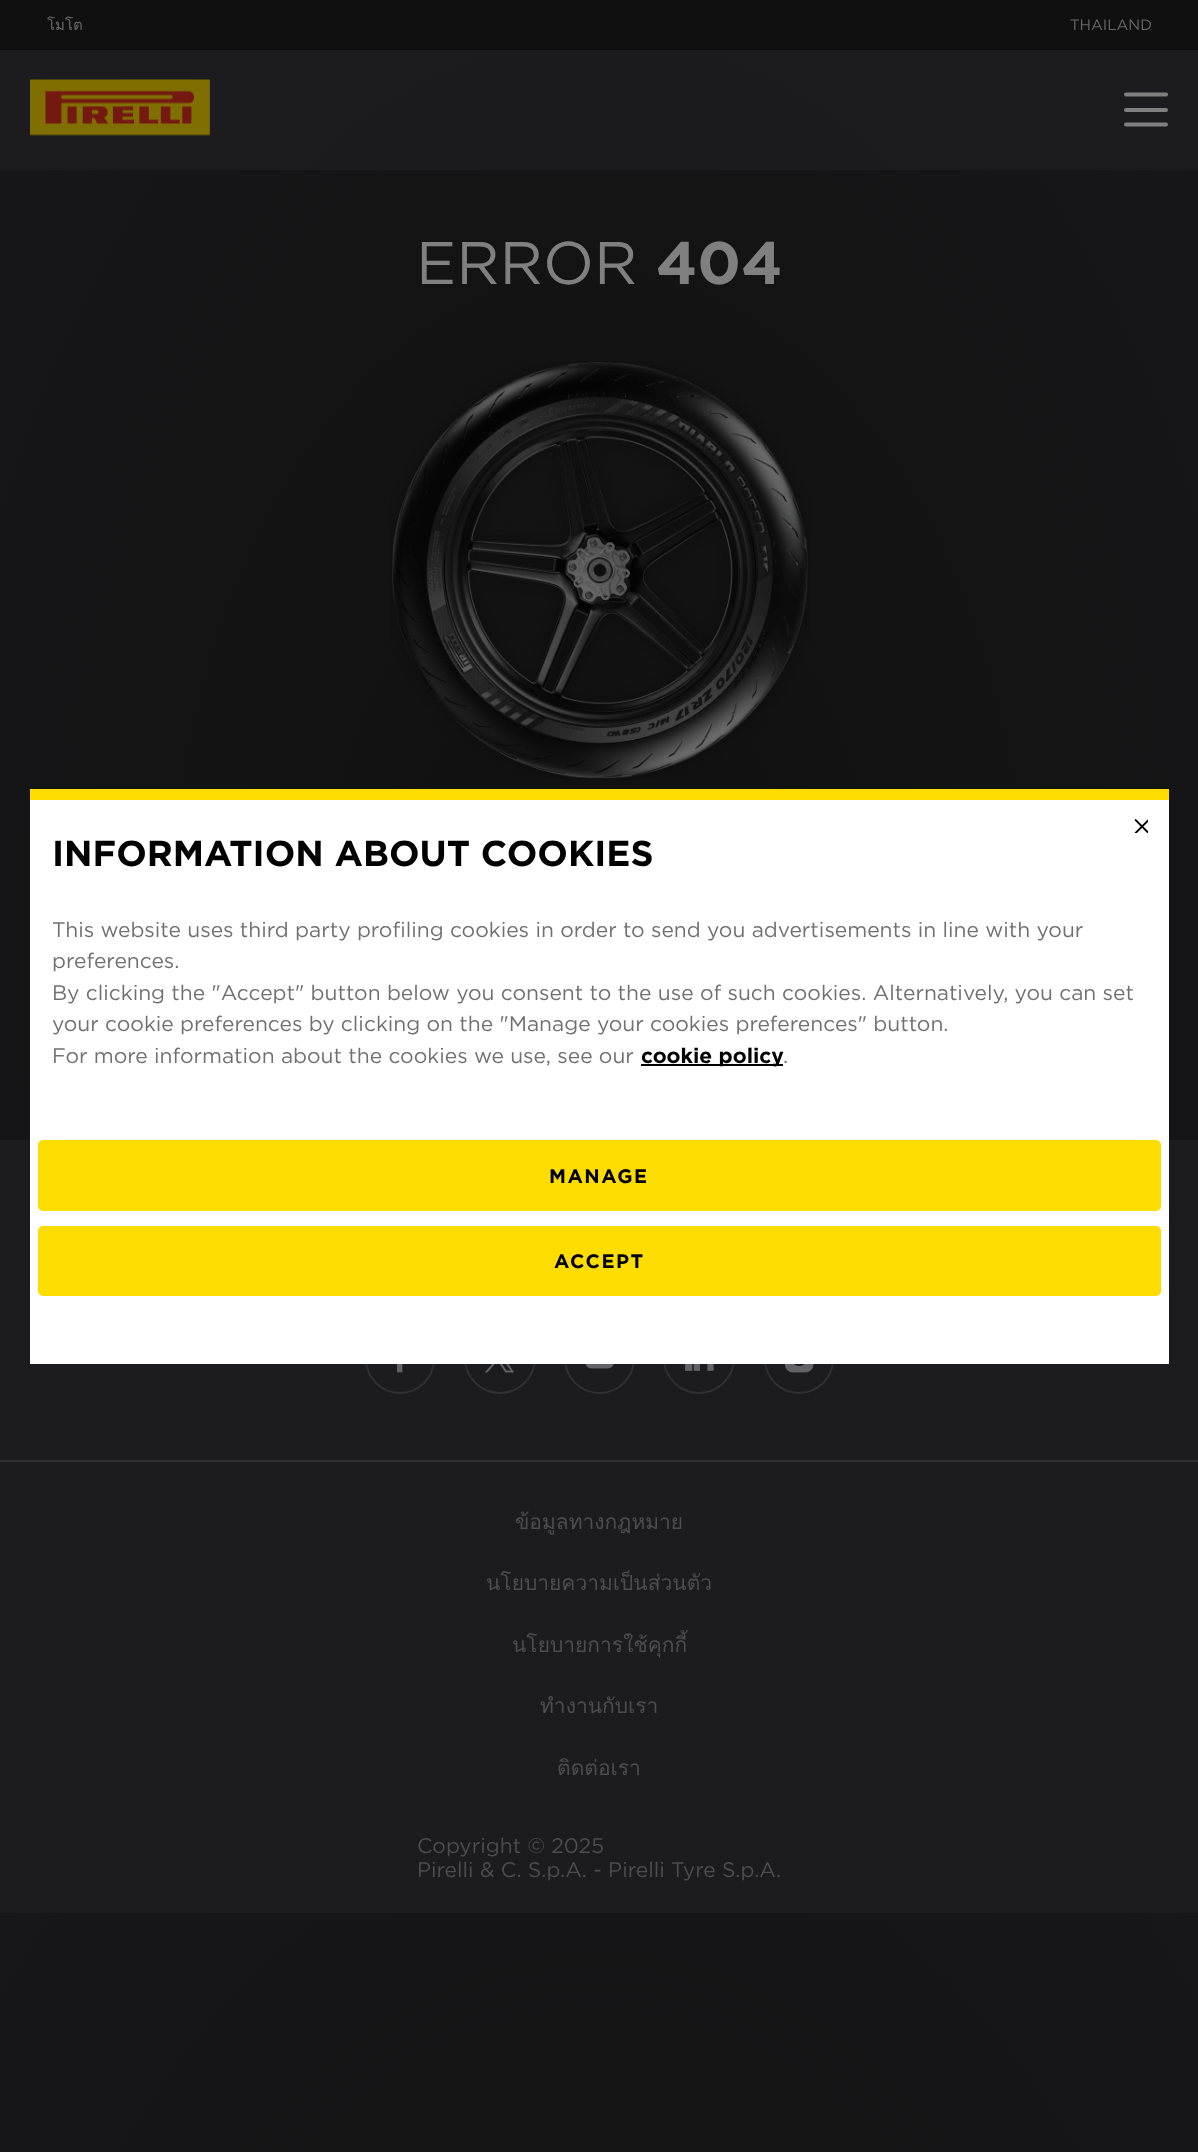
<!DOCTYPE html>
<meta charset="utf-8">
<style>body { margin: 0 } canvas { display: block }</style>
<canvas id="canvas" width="1198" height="2152"></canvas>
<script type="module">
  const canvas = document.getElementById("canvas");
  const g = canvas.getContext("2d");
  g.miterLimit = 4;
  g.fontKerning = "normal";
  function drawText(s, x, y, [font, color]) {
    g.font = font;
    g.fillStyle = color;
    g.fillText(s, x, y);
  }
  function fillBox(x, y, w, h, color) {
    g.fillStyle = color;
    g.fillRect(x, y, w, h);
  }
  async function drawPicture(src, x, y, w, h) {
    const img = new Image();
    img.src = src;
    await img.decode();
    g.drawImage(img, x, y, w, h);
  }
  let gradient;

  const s1 = ["15px Loma", "#696969"];
  const s2 = ["15px Gotham", "#696969"];
  const s3 = ["60px Gotham", "#808080"];
  const s4 = ["bold 60px Gotham", "#808080"];
  const s5 = ["21px Loma", "#4D4D4D"];
  const s6 = ["21px Gotham", "#4D4D4D"];
  const s7 = ["bold 36px Gotham", "#000000"];
  const s8 = ["21px Gotham", "#707070"];
  const s9 = ["bold 21px Gotham", "#000000"];
  const s10 = ["bold 19.5px Gotham", "#000000"];

  fillBox(0, 0, 1198, 2152, "#FFFFFF");
  gradient = g.createRadialGradient(599, 598.91, 0, 599, 598.91, 847);
  gradient.addColorStop(0, "#101010");
  gradient.addColorStop(1, "#171719");
  g.fillStyle = gradient;
  g.beginPath();
  g.rect(0, 170, 1198, 970);
  g.save();
  g.clip();
  g.scale(1, 1352 / 847);
  g.fillRect(0, 0, 1198, 1349);
  g.restore();
  gradient = g.createRadialGradient(599, 598.91, 0, 599, 598.91, 847);
  gradient.addColorStop(0, "#1B1B1E");
  gradient.addColorStop(1, "#1C1C1F");
  g.fillStyle = gradient;
  g.beginPath();
  g.rect(0, 50, 1198, 120);
  g.save();
  g.clip();
  g.scale(1, 1352 / 847);
  g.fillRect(0, 0, 1198, 1349);
  g.restore();
  gradient = g.createRadialGradient(599, 1797.37, 0, 599, 1797.37, 847);
  gradient.addColorStop(0, "#101010");
  gradient.addColorStop(1, "#171719");
  g.fillStyle = gradient;
  g.beginPath();
  g.rect(0, 1913, 1198, 239);
  g.save();
  g.clip();
  g.scale(1, 1352 / 847);
  g.fillRect(0, 0, 1198, 1349);
  g.restore();
  fillBox(0, 0, 1198, 50, "#101010");
  drawText("โมโต", 47, 30, s1);
  drawText("THAILAND", 1070, 30, s2);
  await drawPicture("pic1.png", 30, 79, 180, 57);
  g.beginPath();
  g.moveTo(1126, 94.5);
  g.lineTo(1166, 94.5);
  g.moveTo(1126, 110);
  g.lineTo(1166, 110);
  g.moveTo(1126, 124.5);
  g.lineTo(1166, 124.5);
  g.strokeStyle = "#808080";
  g.lineWidth = 4;
  g.lineCap = "round";
  g.stroke();
  drawText("ERROR", 416, 284, s3);
  drawText("404", 656, 284, s4);
  await drawPicture("pic2.png", 390, 361, 420, 418);
  fillBox(0, 1140, 1198, 773, "#1C1C1F");
  g.beginPath();
  g.roundRect(366, 1323, 68, 70, 34);
  g.strokeStyle = "#303033";
  g.lineWidth = 2;
  g.stroke();
  await drawPicture("pic3.png", 397, 1364, 6, 9);
  g.beginPath();
  g.arc(500, 1358, 35, 0, Math.PI * 2);
  g.stroke();
  await drawPicture("pic4.png", 485, 1364, 29, 9);
  g.beginPath();
  g.roundRect(565, 1323, 69, 70, 34.5);
  g.stroke();
  await drawPicture("pic5.png", 585, 1364, 29, 5);
  g.beginPath();
  g.arc(699, 1358, 35, 0, Math.PI * 2);
  g.stroke();
  await drawPicture("pic6.png", 685, 1364, 29, 7);
  g.beginPath();
  g.roundRect(765, 1323, 68, 70, 34);
  g.stroke();
  await drawPicture("pic7.png", 785, 1364, 29, 9);
  fillBox(0, 1460, 1198, 2, "#303033");
  drawText("ข้อมูลทางกฎหมาย", 515, 1529, s5);
  drawText("นโยบายความเป็นส่วนตัว", 486, 1590, s5);
  drawText("นโยบายการใช้คุกกี้", 512, 1652, s5);
  drawText("ทำงานกับเรา", 540, 1713, s5);
  drawText("ติดต่อเรา", 557, 1775, s5);
  drawText("Copyright © 2025", 417, 1853, s6);
  drawText("Pirelli & C. S.p.A. - Pirelli Tyre S.p.A.", 417, 1877, s6);
  fillBox(30, 800, 1139, 564, "#FFFFFF");
  fillBox(30, 789, 1139, 11, "#FFDD00");
  await drawPicture("pic8.png", 1134, 819, 14, 14);
  drawText("INFORMATION ABOUT COOKIES", 52, 866, s7);
  drawText("This website uses third party profiling cookies in order to send you advertisements in line with your", 52, 937, s8);
  drawText("preferences.", 52, 968, s8);
  drawText("By clicking the \"Accept\" button below you consent to the use of such cookies. Alternatively, you can set", 52, 1000, s8);
  drawText("your cookie preferences by clicking on the \"Manage your cookies preferences\" button.", 52, 1031, s8);
  drawText("For more information about the cookies we use, see our", 52, 1063, s8);
  fillBox(641, 1064, 142, 2, "#000000");
  drawText("cookie policy", 641, 1063, s9);
  drawText(".", 783, 1063, s8);
  g.fillStyle = "#FDDD00";
  g.beginPath();
  g.roundRect(39, 1141, 1121, 69, 4);
  g.fill();
  g.strokeStyle = "#FDDD00";
  g.stroke();
  g.letterSpacing = "1.5px";
  drawText("MANAGE", 549, 1183, s10);
  g.fillStyle = "#FDDD00";
  g.beginPath();
  g.roundRect(39, 1227, 1121, 68, 4);
  g.fill();
  g.stroke();
  drawText("ACCEPT", 554, 1268, s10);
</script>
